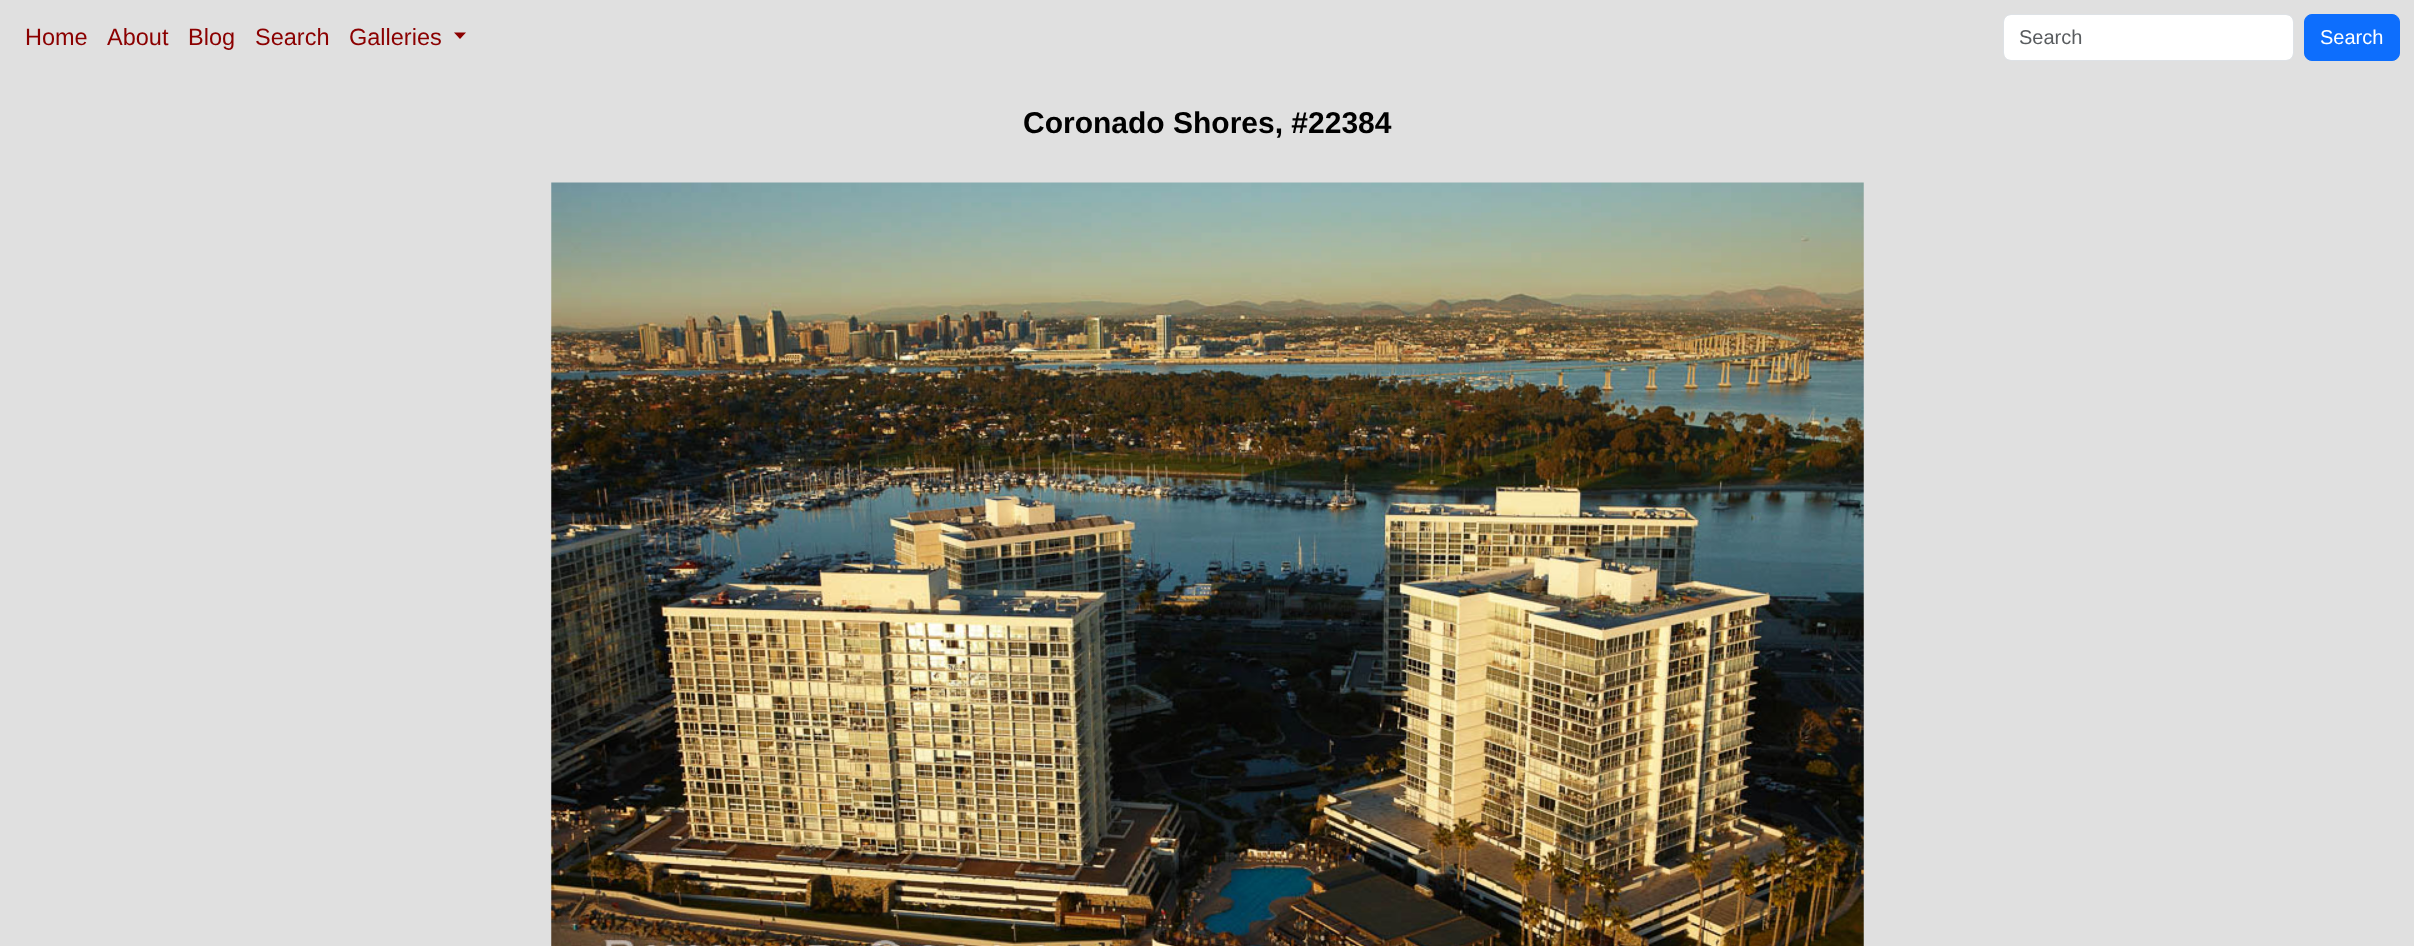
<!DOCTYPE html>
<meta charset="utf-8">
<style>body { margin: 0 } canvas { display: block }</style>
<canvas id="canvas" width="2414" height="946"></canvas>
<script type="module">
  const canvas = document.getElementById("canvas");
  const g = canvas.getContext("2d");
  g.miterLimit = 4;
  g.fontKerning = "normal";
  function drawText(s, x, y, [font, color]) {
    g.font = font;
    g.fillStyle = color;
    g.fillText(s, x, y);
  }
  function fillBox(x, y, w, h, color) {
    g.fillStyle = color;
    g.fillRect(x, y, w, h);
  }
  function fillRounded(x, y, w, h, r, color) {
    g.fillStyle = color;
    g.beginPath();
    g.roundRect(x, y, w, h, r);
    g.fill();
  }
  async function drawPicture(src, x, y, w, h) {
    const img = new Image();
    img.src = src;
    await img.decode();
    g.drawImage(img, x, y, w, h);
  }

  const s1 = ["23.5px Liberation Sans", "#8B0000"];
  const s2 = ["20px Liberation Sans", "#595C5F"];
  const s3 = ["20px Liberation Sans", "#FFFFFF"];
  const s4 = ["bold 30px Liberation Sans", "#000000"];

  fillBox(0, 0, 2414, 946, "#E0E0E0");
  drawText("Home", 25, 45, s1);
  drawText("About", 107, 45, s1);
  drawText("Blog", 188, 45, s1);
  drawText("Search", 255, 45, s1);
  drawText("Galleries", 349, 45, s1);
  g.beginPath();
  g.moveTo(454, 32.5);
  g.lineTo(466, 32.5);
  g.lineTo(460, 39);
  g.closePath();
  g.fill();
  fillRounded(2004, 15, 289, 45, 6, "#FFFFFF");
  g.beginPath();
  g.roundRect(2003.5, 14.5, 290, 46, 7.5);
  g.strokeStyle = "#DEE2E6";
  g.stroke();
  drawText("Search", 2019, 44, s2);
  g.fillStyle = "#0D6EFD";
  g.beginPath();
  g.roundRect(2304.5, 14.5, 95, 46, 7.5);
  g.fill();
  g.strokeStyle = "#0D6EFD";
  g.stroke();
  drawText("Search", 2320, 44, s3);
  drawText("Coronado Shores, #22384", 1023, 133, s4);
  await drawPicture("pic1.png", 551, 182, 1313, 764);
</script>
